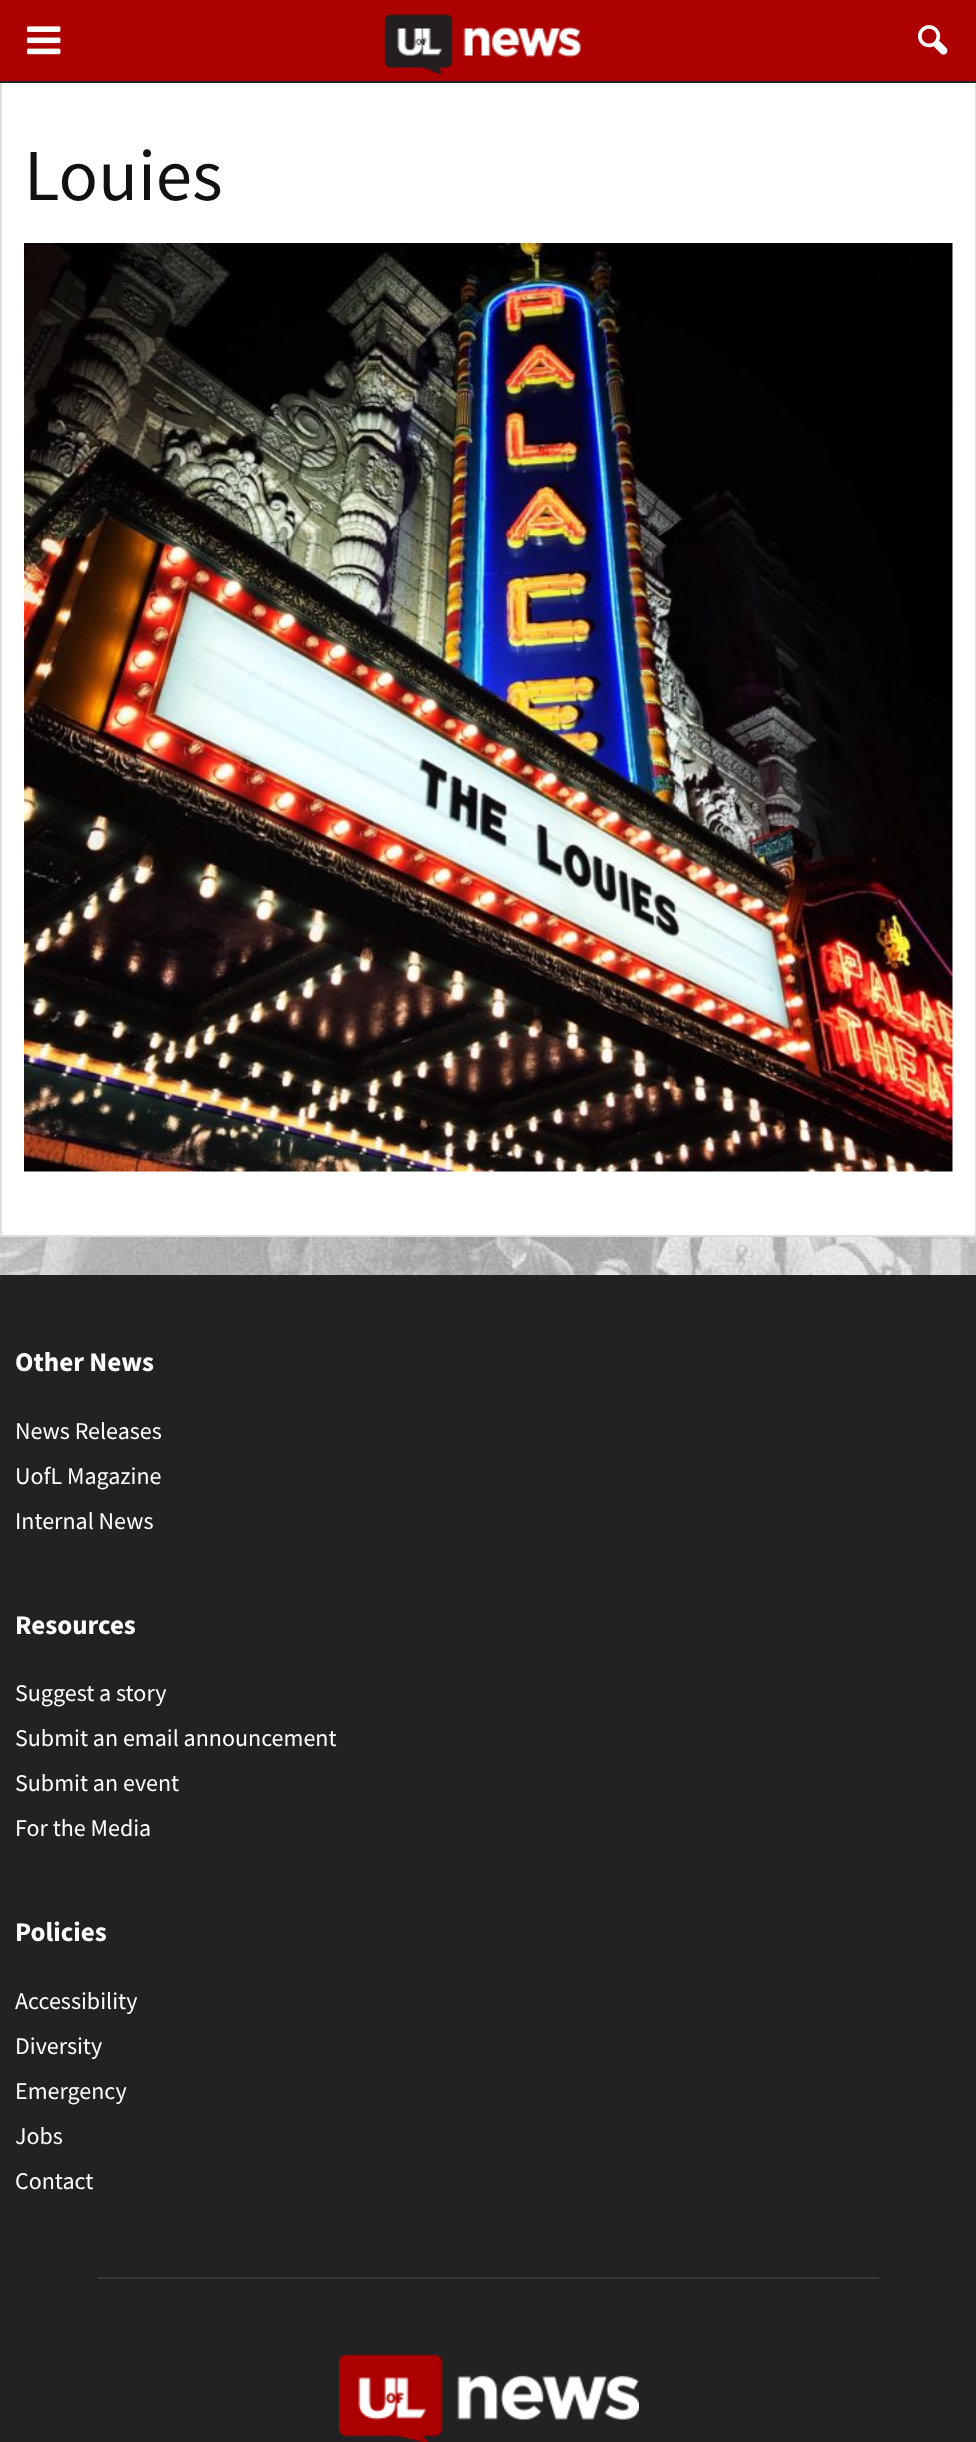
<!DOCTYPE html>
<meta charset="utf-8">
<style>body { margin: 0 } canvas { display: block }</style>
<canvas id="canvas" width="976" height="2442"></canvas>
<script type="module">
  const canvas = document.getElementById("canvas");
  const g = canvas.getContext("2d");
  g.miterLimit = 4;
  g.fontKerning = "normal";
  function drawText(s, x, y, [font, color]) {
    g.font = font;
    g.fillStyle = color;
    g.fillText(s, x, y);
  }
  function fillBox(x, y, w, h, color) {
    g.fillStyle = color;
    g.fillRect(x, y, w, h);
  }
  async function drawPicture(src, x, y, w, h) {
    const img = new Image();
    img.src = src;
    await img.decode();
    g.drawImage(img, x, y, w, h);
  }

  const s1 = ["73px Source Sans Pro", "#111111"];
  const s2 = ["bold 27px Source Sans Pro", "#FFFFFF"];
  const s3 = ["24px Source Sans Pro", "#FFFFFF"];

  fillBox(0, 0, 976, 2442, "#FFFFFF");
  fillBox(975, 81, 1, 1155, "#DEDEDE");
  fillBox(0, 1235, 976, 2, "#DEDEDE");
  fillBox(0, 81, 2, 1155, "#DEDEDE");
  fillBox(0, 81, 976, 2, "#222222");
  fillBox(0, 0, 976, 81, "#AD0000");
  await drawPicture("pic1.png", 27, 26, 34, 29);
  await drawPicture("pic2.png", 384, 13, 197, 63);
  await drawPicture("pic3.png", 918, 25, 30, 30);
  await drawPicture("pic4.png", 0, 1237, 976, 38);
  drawText("Louies", 24, 200, s1);
  await drawPicture("pic5.png", 24, 243, 929, 929);
  fillBox(0, 1275, 976, 1167, "#222222");
  drawText("Other News", 15, 1371, s2);
  drawText("News Releases", 15, 1439, s3);
  drawText("UofL Magazine", 15, 1484, s3);
  drawText("Internal News", 15, 1529, s3);
  drawText("Resources", 15, 1634, s2);
  drawText("Suggest a story", 15, 1701, s3);
  drawText("Submit an email announcement", 15, 1746, s3);
  drawText("Submit an event", 15, 1791, s3);
  drawText("For the Media", 15, 1836, s3);
  drawText("Policies", 15, 1941, s2);
  drawText("Accessibility", 15, 2009, s3);
  drawText("Diversity", 15, 2054, s3);
  drawText("Emergency", 15, 2099, s3);
  drawText("Jobs", 15, 2144, s3);
  drawText("Contact", 15, 2189, s3);
  fillBox(98, 2277, 781, 2, "#383838");
  await drawPicture("pic6.png", 339, 2354, 300, 88);
</script>
